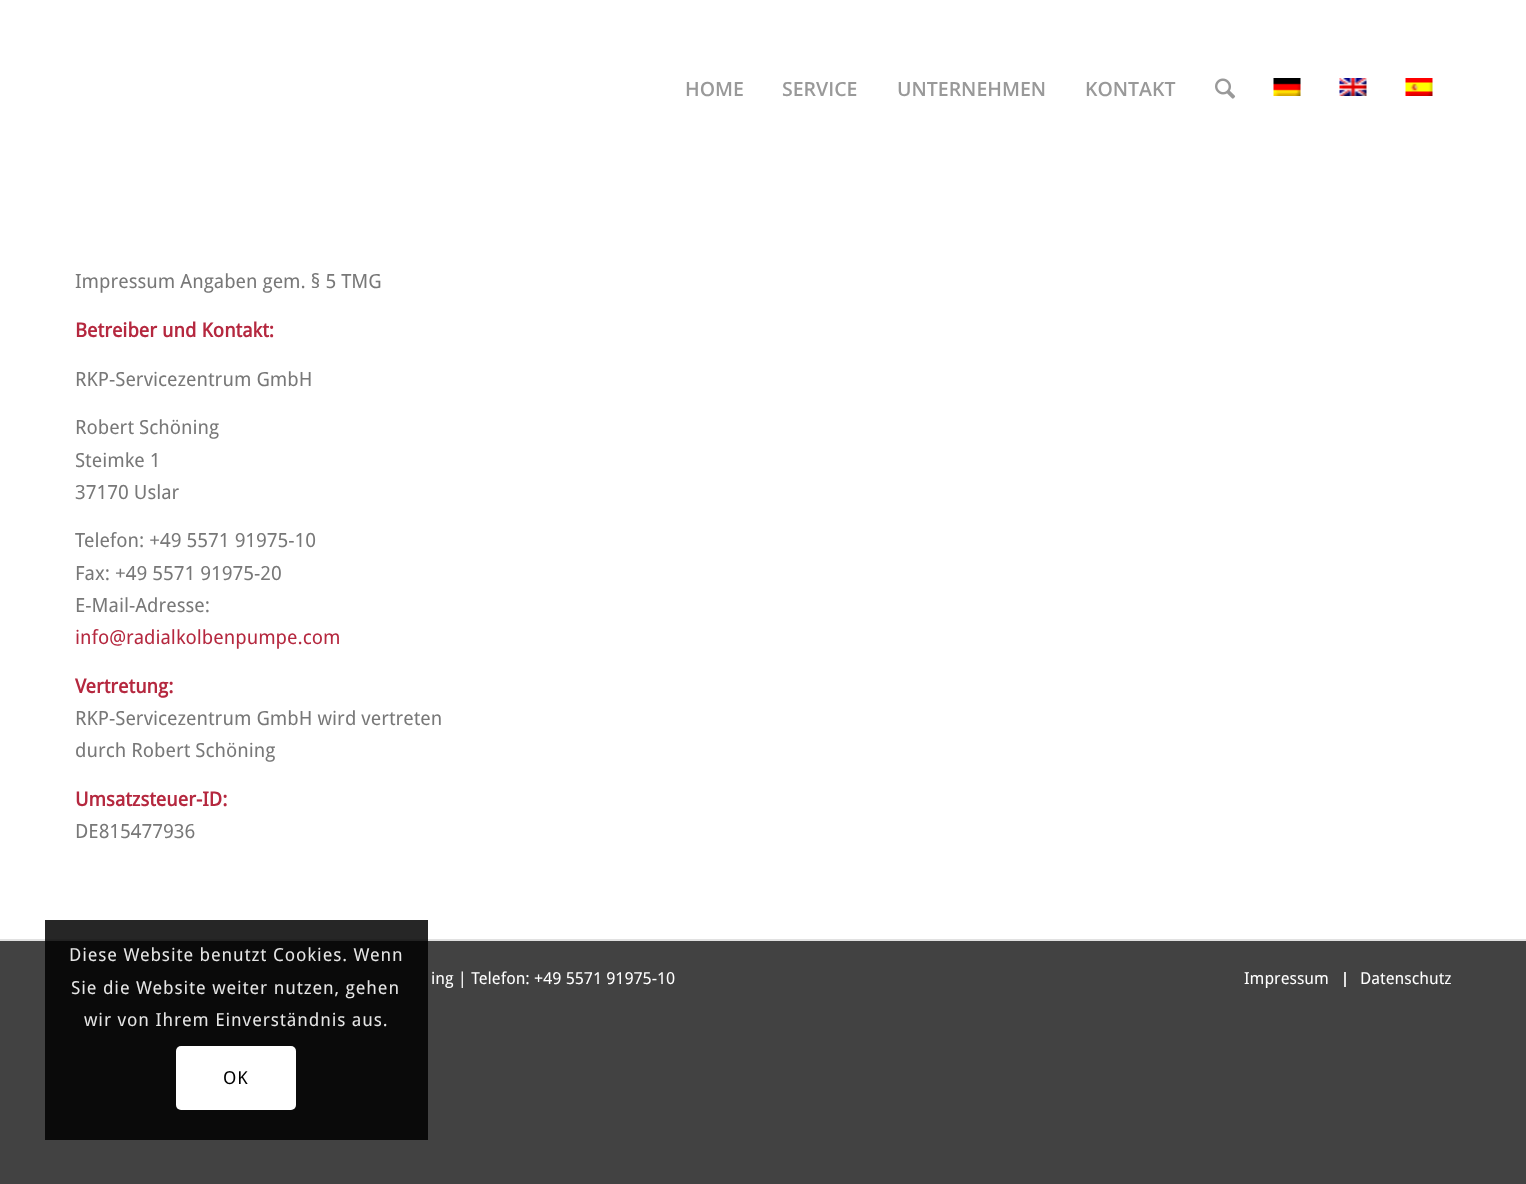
<!DOCTYPE html>
<meta charset="utf-8">
<style>body { margin: 0 } canvas { display: block }</style>
<canvas id="canvas" width="1526" height="1184"></canvas>
<script type="module">
  const canvas = document.getElementById("canvas");
  const g = canvas.getContext("2d");
  g.miterLimit = 4;
  g.fontKerning = "normal";
  function drawText(s, x, y, [font, color]) {
    g.font = font;
    g.fillStyle = color;
    g.fillText(s, x, y);
  }
  function fillBox(x, y, w, h, color) {
    g.fillStyle = color;
    g.fillRect(x, y, w, h);
  }
  function fillRounded(x, y, w, h, r, color) {
    g.fillStyle = color;
    g.beginPath();
    g.roundRect(x, y, w, h, r);
    g.fill();
  }
  async function drawPicture(src, x, y, w, h) {
    const img = new Image();
    img.src = src;
    await img.decode();
    g.drawImage(img, x, y, w, h);
  }

  const s1 = ["600 19.5px Open Sans", "#999999"];
  const s2 = ["19.5px Droid Sans", "#787878"];
  const s3 = ["bold 19.5px Droid Sans", "#B5283F"];
  const s4 = ["19.5px Droid Sans", "#B5283F"];
  const s5 = ["16.5px Droid Sans", "#FFFFFF"];
  const s6 = ["18px Droid Sans", "#E6E6E6"];
  const s7 = ["18px Droid Sans", "#000000"];

  fillBox(0, 0, 1526, 1184, "#424242");
  fillBox(0, 0, 1526, 939, "#FFFFFF");
  drawText("HOME", 685, 96, s1);
  drawText("SERVICE", 782, 96, s1);
  drawText("UNTERNEHMEN", 897, 96, s1);
  drawText("KONTAKT", 1085, 96, s1);
  await drawPicture("pic1.png", 1215, 78, 21, 21);
  await drawPicture("pic2.png", 1273, 78, 28, 18);
  await drawPicture("pic3.png", 1339, 78, 28, 18);
  await drawPicture("pic4.png", 1405, 78, 28, 18);
  drawText("Impressum Angaben gem. § 5 TMG", 75, 288, s2);
  drawText("Betreiber und Kontakt:", 75, 337, s3);
  drawText("RKP-Servicezentrum GmbH", 75, 386, s2);
  drawText("Robert Schöning", 75, 434, s2);
  drawText("Steimke 1", 75, 467, s2);
  drawText("37170 Uslar", 75, 499, s2);
  drawText("Telefon: +49 5571 91975-10", 75, 547, s2);
  drawText("Fax: +49 5571 91975-20", 75, 580, s2);
  drawText("E-Mail-Adresse:", 75, 612, s2);
  drawText("info@radialkolbenpumpe.com", 75, 644, s4);
  drawText("Vertretung:", 75, 693, s3);
  drawText("RKP-Servicezentrum GmbH wird vertreten", 75, 725, s2);
  drawText("durch Robert Schöning", 75, 757, s2);
  drawText("Umsatzsteuer-ID:", 75, 806, s3);
  drawText("DE815477936", 75, 838, s2);
  fillBox(0, 939, 1526, 2, "#E1E1E1");
  drawText("ing | Telefon: +49 5571 91975-10", 431, 984, s5);
  drawText("Impressum", 1244, 984, s5);
  fillBox(1344, 972, 2, 15, "#E1E1E1");
  drawText("Datenschutz", 1360, 984, s5);
  fillBox(45, 920, 383, 220, "rgba(0, 0, 0, 0.85)");
  g.letterSpacing = "0.9px";
  drawText("Diese Website benutzt Cookies. Wenn", 69, 961, s6);
  drawText("Sie die Website weiter nutzen, gehen", 71, 994, s6);
  drawText("wir von Ihrem Einverständnis aus.", 84, 1026, s6);
  fillRounded(176, 1046, 120, 64, 5, "#FFFFFF");
  drawText("OK", 223, 1084, s7);
</script>
